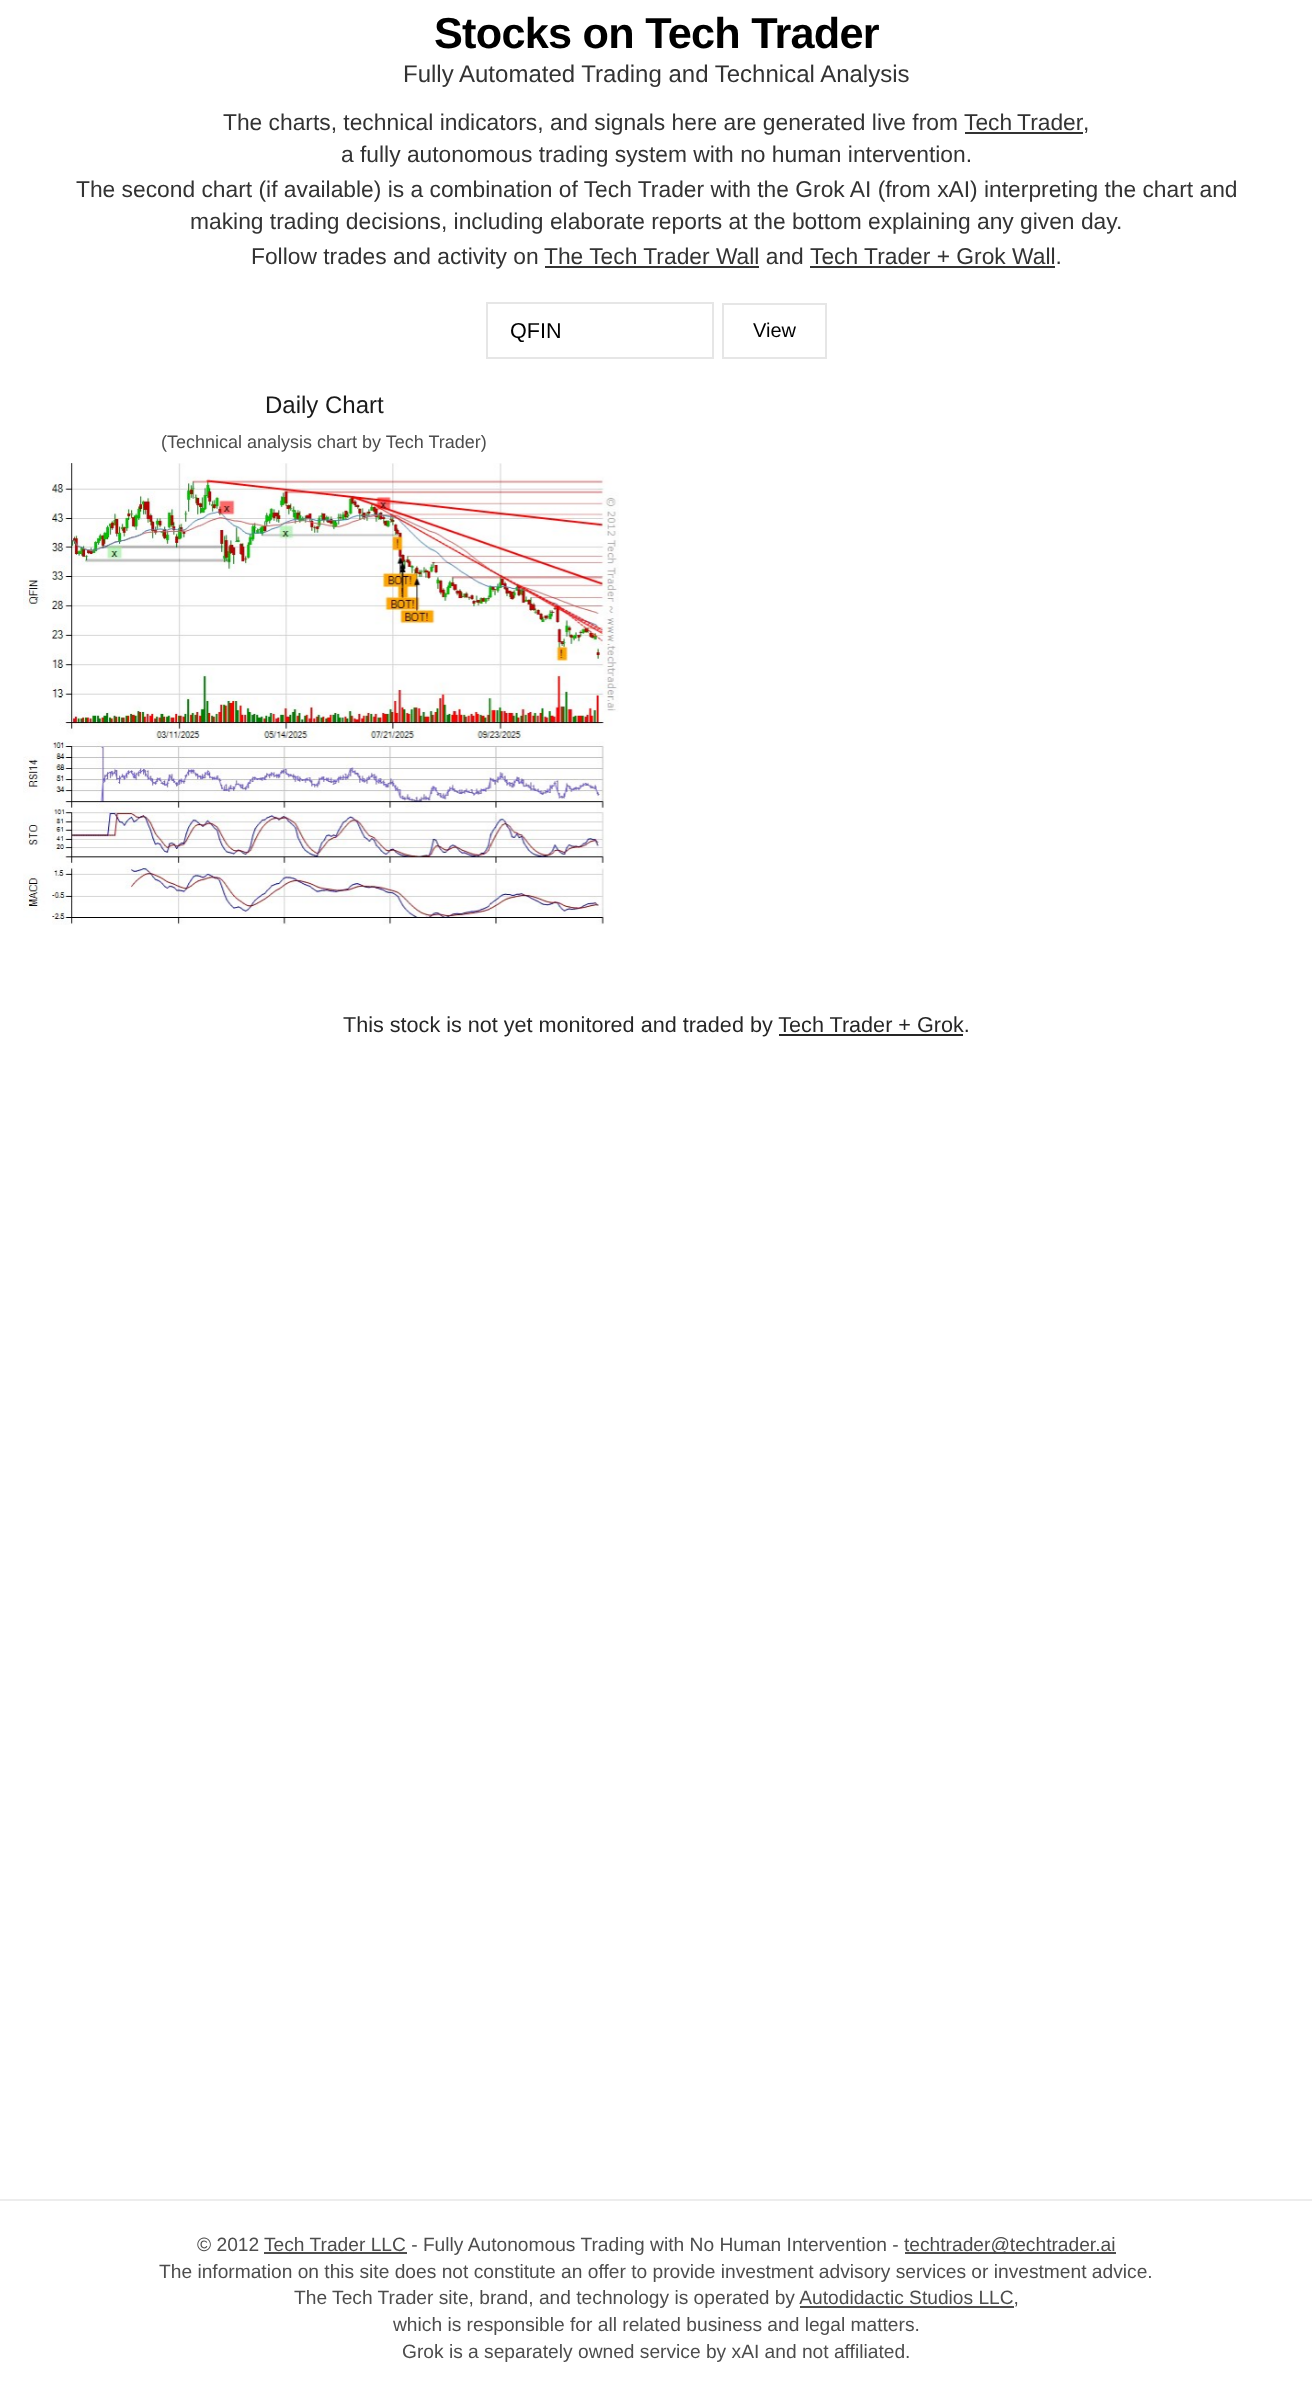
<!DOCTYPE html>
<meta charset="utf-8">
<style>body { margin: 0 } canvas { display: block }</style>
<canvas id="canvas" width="1312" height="2395"></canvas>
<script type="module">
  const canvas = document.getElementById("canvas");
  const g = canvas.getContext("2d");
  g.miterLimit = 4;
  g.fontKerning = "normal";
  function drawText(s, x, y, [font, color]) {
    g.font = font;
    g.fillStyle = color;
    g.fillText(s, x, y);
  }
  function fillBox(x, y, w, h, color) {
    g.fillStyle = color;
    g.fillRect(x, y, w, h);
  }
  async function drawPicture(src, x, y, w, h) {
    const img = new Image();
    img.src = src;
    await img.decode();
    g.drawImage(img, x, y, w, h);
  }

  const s1 = ["bold 43.25px Liberation Sans", "#000000"];
  const s2 = ["24px Liberation Sans", "#333333"];
  const s3 = ["22.8px Liberation Sans", "#333333"];
  const s4 = ["21.6px Liberation Sans", "#000000"];
  const s5 = ["20px Liberation Sans", "#000000"];
  const s6 = ["24px Liberation Sans", "#1A1A1A"];
  const s7 = ["18px Liberation Sans", "#4D4D4D"];
  const s8 = ["21.6px Liberation Sans", "#262626"];
  const s9 = ["19.2px Liberation Sans", "#4D4D4D"];

  fillBox(0, 0, 1312, 2395, "#FFFFFF");
  g.letterSpacing = "-0.75px";
  drawText("Stocks on Tech Trader", 434, 48, s1);
  g.letterSpacing = "0px";
  drawText("Fully Automated Trading and Technical Analysis", 403, 82, s2);
  drawText("The charts, technical indicators, and signals here are generated live from", 223, 130, s3);
  g.wordSpacing = "-1px";
  drawText("Tech Trader", 964, 130, s3);
  fillBox(965, 132, 118, 2, "#333333");
  g.wordSpacing = "0px";
  drawText(",", 1083, 130, s3);
  drawText("a fully autonomous trading system with no human intervention.", 341, 162, s3);
  drawText("The second chart (if available) is a combination of Tech Trader with the Grok AI (from xAI) interpreting the chart and", 76, 197, s3);
  drawText("making trading decisions, including elaborate reports at the bottom explaining any given day.", 190, 229, s3);
  drawText("Follow trades and activity on", 251, 264, s3);
  drawText("The Tech Trader Wall and", 544, 264, s3);
  fillBox(545, 266, 214, 2, "#333333");
  drawText("Tech Trader + Grok Wall.", 810, 264, s3);
  fillBox(810, 266, 245, 2, "#333333");
  g.strokeStyle = "#E6E6E6";
  g.lineWidth = 2;
  g.strokeRect(487, 303, 226, 55);
  drawText("QFIN", 510, 338, s4);
  g.strokeRect(723, 304, 103, 54);
  drawText("View", 753, 337, s5);
  drawText("Daily Chart", 265, 413, s6);
  drawText("(Technical analysis chart by Tech Trader)", 161, 448, s7);
  await drawPicture("pic1.png", 23, 463, 596, 462);
  drawText("This stock is not yet monitored and traded by Tech Trader + Grok.", 343, 1032, s8);
  fillBox(779, 1034, 184, 2, "#262626");
  fillBox(0, 2199, 1312, 2, "#EDEDED");
  drawText("© 2012", 197, 2251, s9);
  fillBox(264, 2252, 143, 2, "#4D4D4D");
  drawText("Tech Trader LLC - Fully Autonomous Trading with No Human Intervention -", 264, 2251, s9);
  fillBox(905, 2252, 211, 2, "#4D4D4D");
  drawText("techtrader@techtrader.ai", 904, 2251, s9);
  drawText("The information on this site does not constitute an offer to provide investment advisory services or investment advice.", 159, 2278, s9);
  drawText("The Tech Trader site, brand, and technology is operated by Autodidactic Studios LLC,", 294, 2304, s9);
  fillBox(800, 2306, 214, 2, "#4D4D4D");
  drawText("which is responsible for all related business and legal matters.", 393, 2331, s9);
  drawText("Grok is a separately owned service by xAI and not affiliated.", 402, 2358, s9);
</script>
